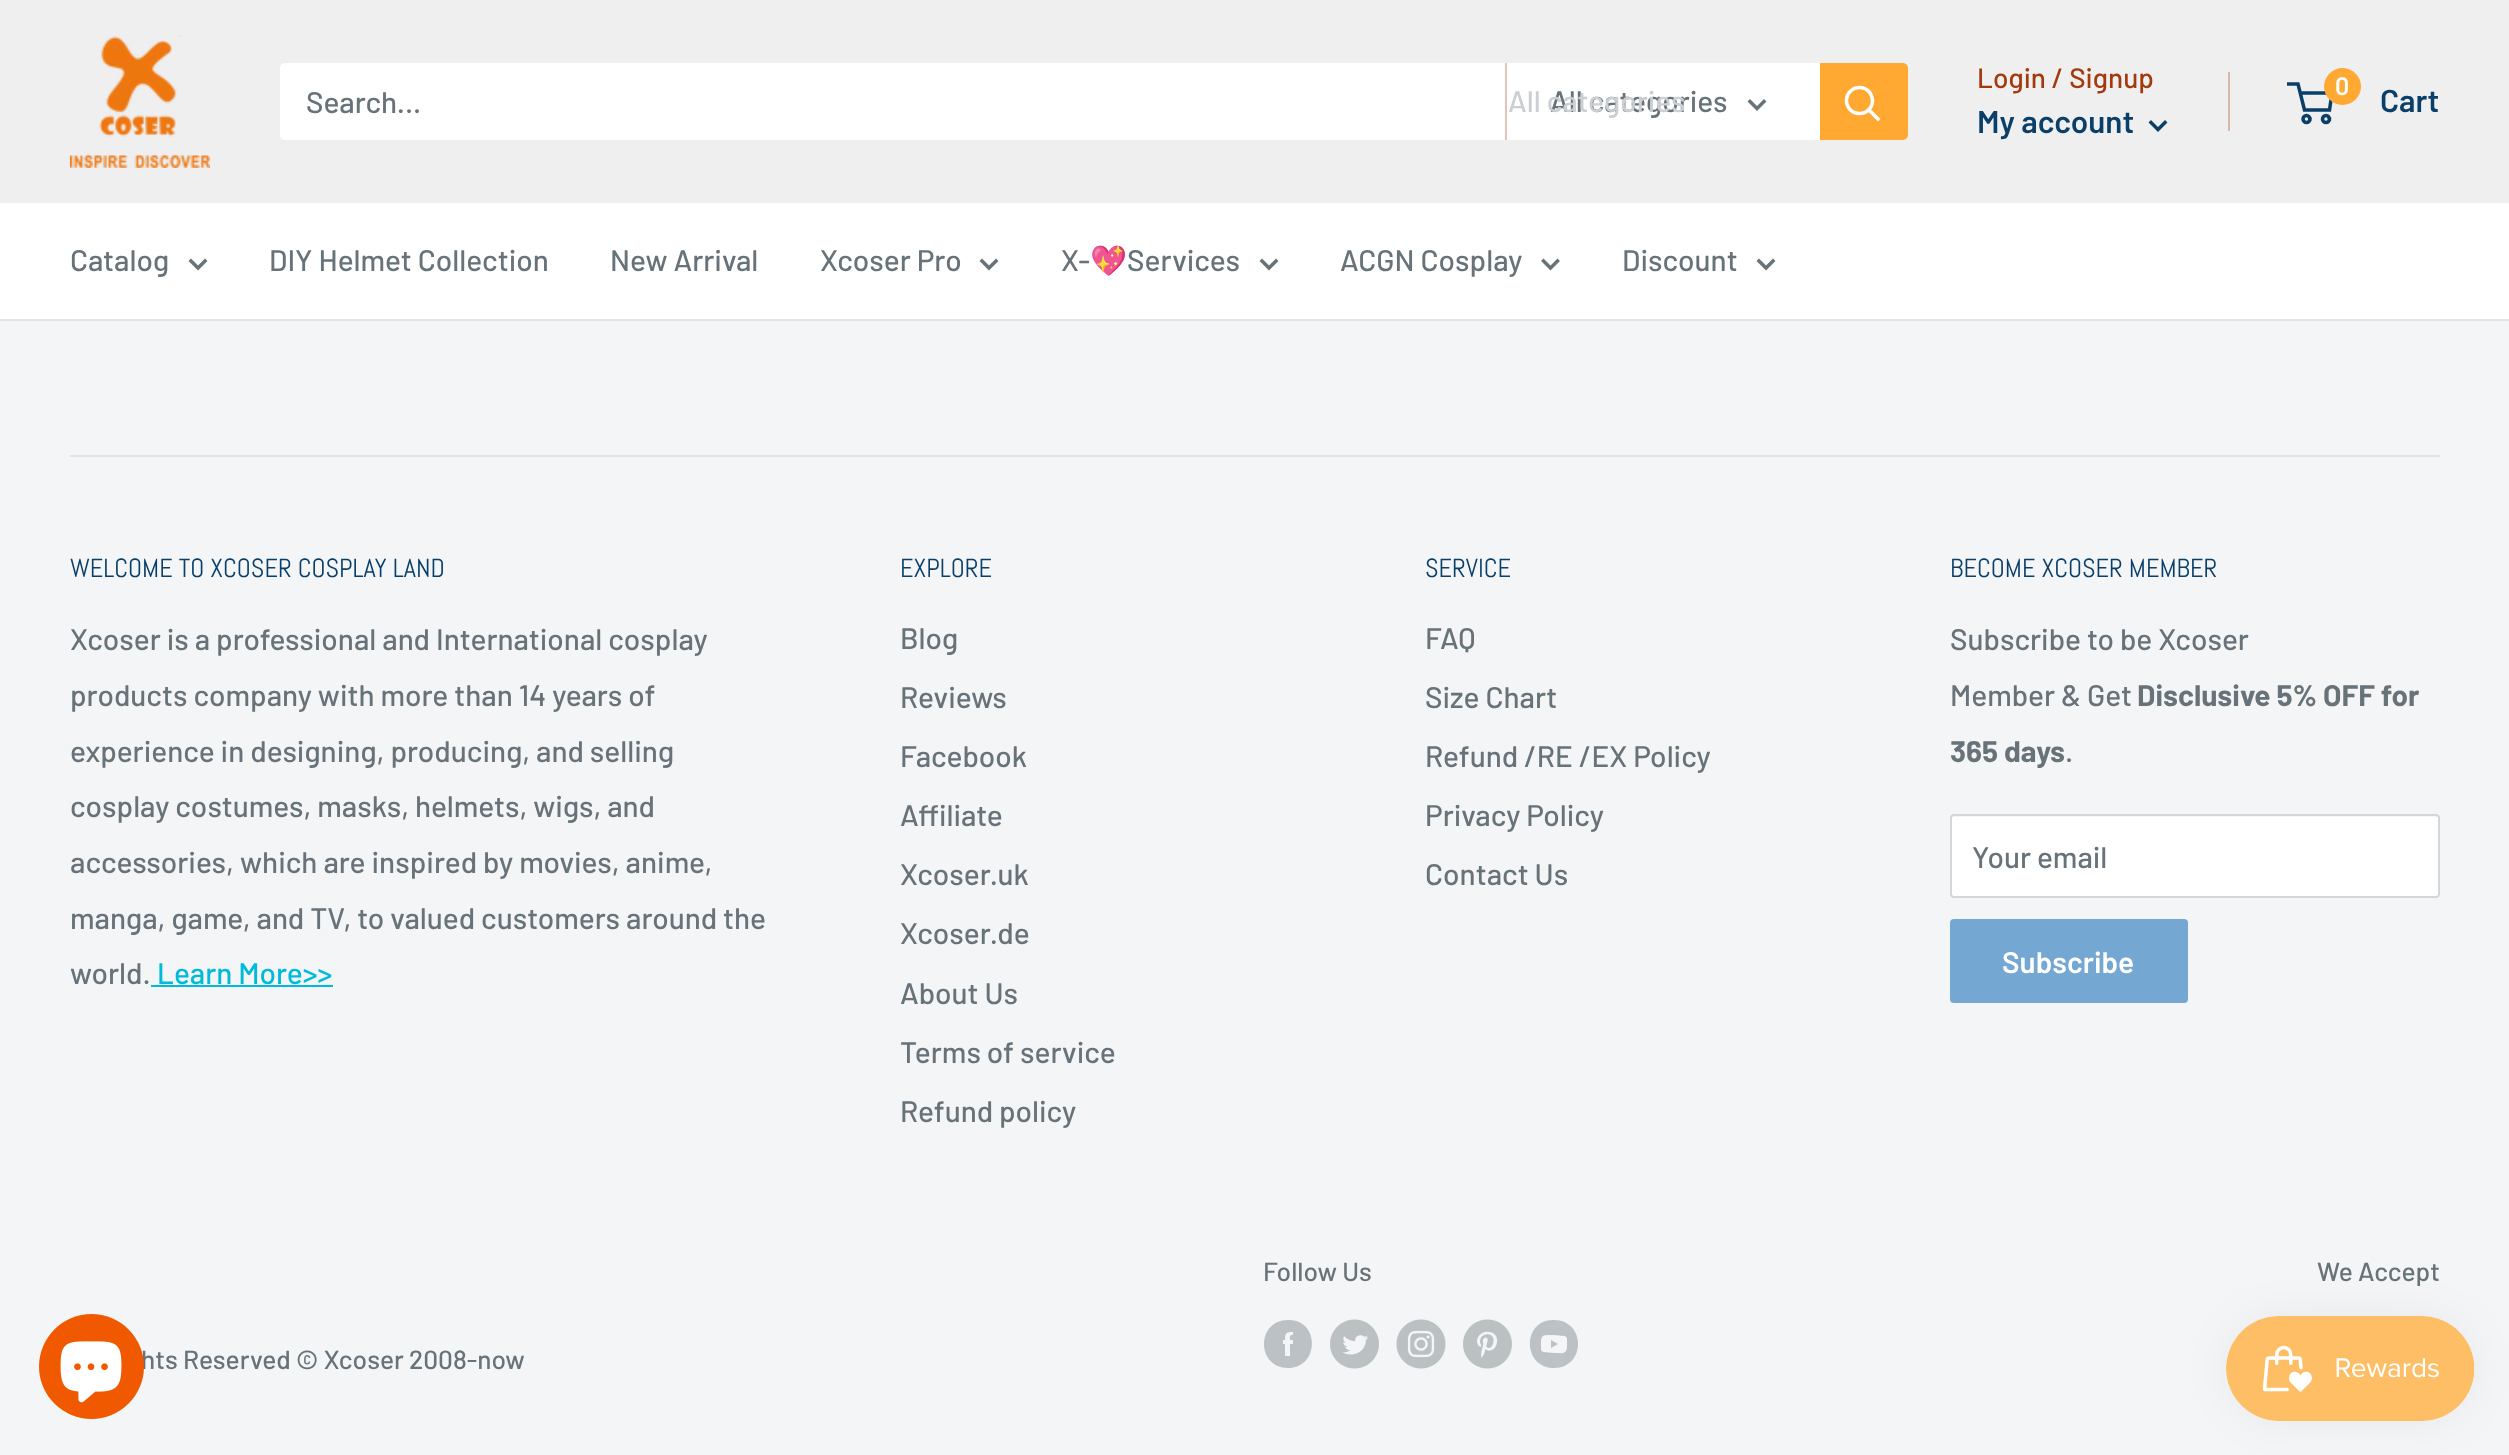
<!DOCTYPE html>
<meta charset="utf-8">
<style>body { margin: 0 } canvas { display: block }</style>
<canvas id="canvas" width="2509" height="1455"></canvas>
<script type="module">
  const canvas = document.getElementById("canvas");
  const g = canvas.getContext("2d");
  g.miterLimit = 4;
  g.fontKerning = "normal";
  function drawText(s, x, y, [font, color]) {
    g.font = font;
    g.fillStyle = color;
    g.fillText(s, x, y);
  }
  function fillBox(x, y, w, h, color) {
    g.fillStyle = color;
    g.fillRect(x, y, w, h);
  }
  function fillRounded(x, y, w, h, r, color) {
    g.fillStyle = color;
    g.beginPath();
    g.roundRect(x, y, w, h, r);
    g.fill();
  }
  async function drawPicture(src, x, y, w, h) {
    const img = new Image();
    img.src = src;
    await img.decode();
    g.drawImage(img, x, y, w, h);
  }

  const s1 = ["500 29.75px Barlow", "#677279"];
  const s2 = ["500 29.75px Barlow", "#CCCFD2"];
  const s3 = ["500 28px Barlow", "#A4390B"];
  const s4 = ["600 31.5px Barlow", "#0A3F6A"];
  const s5 = ["600 25px Barlow", "#FFFFFF"];
  const s6 = ["29.75px Noto Color Emoji", "#677279"];
  const s7 = ["26.25px Abel", "#0A3F6A"];
  const s8 = ["500 29.75px Barlow", "#00BADB"];
  const s9 = ["bold 29.75px Barlow", "#677279"];
  const s10 = ["600 29.75px Barlow", "#FFFFFF"];
  const s11 = ["500 26.25px Barlow", "#677279"];

  fillBox(0, 0, 2509, 1455, "#F3F5F6");
  fillBox(0, 0, 2509, 203, "#EFEFEF");
  await drawPicture("pic1.png", 70, 35, 140, 133);
  fillRounded(280, 63, 1628, 77, 5, "#FFFFFF");
  drawText("Search...", 306, 113, s1);
  fillBox(1505, 63, 2, 77, "#E4C4B6");
  drawText("All categories", 1550, 112, s1);
  drawText("All categories", 1508, 112, s2);
  g.beginPath();
  g.moveTo(1764, 101.5);
  g.lineTo(1757, 108.5);
  g.lineTo(1750, 101.5);
  g.strokeStyle = "#677279";
  g.lineWidth = 3.5;
  g.lineCap = "square";
  g.stroke();
  g.fillStyle = "#FFA933";
  g.beginPath();
  g.roundRect(1820, 63, 88, 77, [0, 5, 5, 0]);
  g.fill();
  g.beginPath();
  g.moveTo(1878, 119);
  g.lineTo(1869, 110);
  g.strokeStyle = "#FFFFFF";
  g.stroke();
  g.beginPath();
  g.arc(1859.5, 100.5, 13, 0, Math.PI * 2);
  g.stroke();
  drawText("Login / Signup", 1977, 88, s3);
  fillBox(2228, 72, 2, 59, "#D9B8AB");
  drawText("My account", 1977, 133, s4);
  g.beginPath();
  g.moveTo(2165, 122.5);
  g.lineTo(2158, 129.5);
  g.lineTo(2151, 122.5);
  g.strokeStyle = "#0A3F6A";
  g.stroke();
  g.beginPath();
  g.arc(2306.5, 119, 3.5, 0, Math.PI * 2);
  g.stroke();
  g.beginPath();
  g.arc(2326, 119, 3.5, 0, Math.PI * 2);
  g.stroke();
  g.beginPath();
  g.moveTo(2300, 93);
  g.lineTo(2332, 93);
  g.lineTo(2329.5, 110);
  g.lineTo(2304.5, 110);
  g.lineTo(2298, 84);
  g.lineTo(2287, 84);
  g.lineCap = "butt";
  g.stroke();
  g.fillStyle = "#FFA933";
  g.beginPath();
  g.arc(2342.5, 86.5, 18.5, 0, Math.PI * 2);
  g.fill();
  drawText("0", 2335, 95, s5);
  drawText("Cart", 2380, 112, s4);
  fillBox(0, 203, 2509, 116, "#FFFFFF");
  fillBox(0, 319, 2509, 2, "#E1E3E4");
  drawText("Catalog", 70, 271, s1);
  g.beginPath();
  g.moveTo(205, 261);
  g.lineTo(198, 268);
  g.lineTo(191, 261);
  g.strokeStyle = "#677279";
  g.lineCap = "square";
  g.stroke();
  drawText("DIY Helmet Collection", 269, 271, s1);
  drawText("New Arrival", 610, 271, s1);
  drawText("Xcoser Pro", 820, 271, s1);
  g.beginPath();
  g.moveTo(996, 261);
  g.lineTo(989, 268);
  g.lineTo(982, 261);
  g.stroke();
  drawText("X-", 1061, 271, s1);
  drawText("💖", 1090, 271, s6);
  drawText("Services", 1127, 271, s1);
  g.beginPath();
  g.moveTo(1276, 261);
  g.lineTo(1269, 268);
  g.lineTo(1262, 261);
  g.stroke();
  drawText("ACGN Cosplay", 1340, 271, s1);
  g.beginPath();
  g.moveTo(1557.5, 261);
  g.lineTo(1550.5, 268);
  g.lineTo(1543.5, 261);
  g.stroke();
  drawText("Discount", 1622, 271, s1);
  g.beginPath();
  g.moveTo(1773, 261);
  g.lineTo(1766, 268);
  g.lineTo(1759, 261);
  g.stroke();
  fillBox(70, 455, 2370, 2, "#E1E3E4");
  drawText("WELCOME TO XCOSER COSPLAY LAND", 70, 577, s7);
  drawText("Xcoser is a professional and International cosplay", 70, 650, s1);
  drawText("products company with more than 14 years of", 70, 706, s1);
  drawText("experience in designing, producing, and selling", 70, 762, s1);
  drawText("cosplay costumes, masks, helmets, wigs, and", 70, 817, s1);
  drawText("accessories, which are inspired by movies, anime,", 70, 873, s1);
  drawText("manga, game, and TV, to valued customers around the", 70, 929, s1);
  drawText("world.", 70, 984, s1);
  drawText("Learn More>>", 157, 984, s8);
  fillBox(151, 985, 182, 2, "#00BADB");
  drawText("EXPLORE", 900, 577, s7);
  drawText("Blog", 900, 649, s1);
  drawText("Reviews", 900, 708, s1);
  drawText("Facebook", 900, 767, s1);
  drawText("Affiliate", 900, 826, s1);
  drawText("Xcoser.uk", 900, 885, s1);
  drawText("Xcoser.de", 900, 944, s1);
  drawText("About Us", 900, 1004, s1);
  drawText("Terms of service", 900, 1063, s1);
  drawText("Refund policy", 900, 1122, s1);
  drawText("SERVICE", 1425, 577, s7);
  drawText("FAQ", 1425, 649, s1);
  drawText("Size Chart", 1425, 708, s1);
  drawText("Refund /RE /EX Policy", 1425, 767, s1);
  drawText("Privacy Policy", 1425, 826, s1);
  drawText("Contact Us", 1425, 885, s1);
  drawText("BECOME XCOSER MEMBER", 1950, 577, s7);
  drawText("Subscribe to be Xcoser", 1950, 650, s1);
  drawText("Member & Get", 1950, 706, s1);
  drawText("Disclusive 5% OFF for", 2137, 706, s9);
  drawText("365 days", 1950, 762, s9);
  drawText(".", 2065, 762, s1);
  fillRounded(1950, 814, 490, 84, 4, "#FFFFFF");
  g.fillStyle = "#F4F5F5";
  g.beginPath();
  g.moveTo(1953, 817);
  g.lineTo(2436, 817);
  g.bezierCurveTo(2437, 817, 2438, 818, 2438, 819);
  g.bezierCurveTo(2438, 818, 2438, 816, 2436, 816);
  g.lineTo(1953, 816);
  g.lineTo(1951, 817);
  g.lineTo(1951, 819);
  g.bezierCurveTo(1951, 818, 1952, 817, 1953, 817);
  g.closePath();
  g.fill();
  g.beginPath();
  g.roundRect(1951, 815, 488, 82, 3);
  g.strokeStyle = "#D4D6D8";
  g.lineWidth = 2;
  g.stroke();
  drawText("Your email", 1972, 868, s1);
  fillRounded(1950, 919, 238, 84, 4, "#74A7D1");
  drawText("Subscribe", 2002, 973, s10);
  drawText("Follow Us", 1263, 1281, s11);
  g.fillStyle = "#BBC1C4";
  g.beginPath();
  g.moveTo(1288, 1368);
  g.bezierCurveTo(1256, 1368, 1256, 1320, 1288, 1320);
  g.bezierCurveTo(1320, 1319, 1320, 1368, 1288, 1368);
  g.closePath();
  g.moveTo(1293, 1340);
  g.lineTo(1290, 1340);
  g.bezierCurveTo(1290, 1337, 1289, 1335, 1293, 1335);
  g.lineTo(1293, 1332);
  g.bezierCurveTo(1286, 1332, 1285, 1333, 1285, 1340);
  g.lineTo(1283, 1340);
  g.lineTo(1283, 1344);
  g.lineTo(1285, 1344);
  g.lineTo(1285, 1356);
  g.lineTo(1290, 1356);
  g.lineTo(1290, 1344);
  g.lineTo(1293, 1344);
  g.closePath();
  g.fill("evenodd");
  await drawPicture("pic2.png", 1330, 1319, 49, 50);
  await drawPicture("pic3.png", 1396, 1319, 50, 50);
  await drawPicture("pic4.png", 1463, 1319, 49, 50);
  g.beginPath();
  g.moveTo(1554, 1368);
  g.bezierCurveTo(1586, 1368, 1586, 1320, 1554, 1320);
  g.bezierCurveTo(1522, 1319, 1522, 1368, 1554, 1368);
  g.closePath();
  g.moveTo(1567, 1338);
  g.lineTo(1567, 1346);
  g.bezierCurveTo(1567, 1355, 1562, 1353, 1554, 1353);
  g.lineTo(1543, 1352);
  g.lineTo(1541, 1350);
  g.lineTo(1541, 1342);
  g.bezierCurveTo(1541, 1334, 1545, 1335, 1553, 1335);
  g.lineTo(1565, 1336);
  g.closePath();
  g.moveTo(1551, 1348);
  g.lineTo(1558, 1344);
  g.lineTo(1551, 1340);
  g.closePath();
  g.fill("evenodd");
  drawText("We Accept", 2317, 1281, s11);
  drawText("hts Reserved © Xcoser 2008-now", 141, 1369, s11);
  g.fillStyle = "#F05900";
  g.beginPath();
  g.arc(91.5, 1366.5, 52.5, 0, Math.PI * 2);
  g.fill();
  await drawPicture("pic5.png", 60, 1341, 62, 62);
  g.fillStyle = "rgba(0, 0, 0, 0.05)";
  g.filter = "blur(22px)";
  g.beginPath();
  g.roundRect(2226, 1316, 249, 105, 52.5);
  g.fill();
  g.filter = "none";
  await drawPicture("pic6.png", 2226, 1316, 249, 105);
</script>
